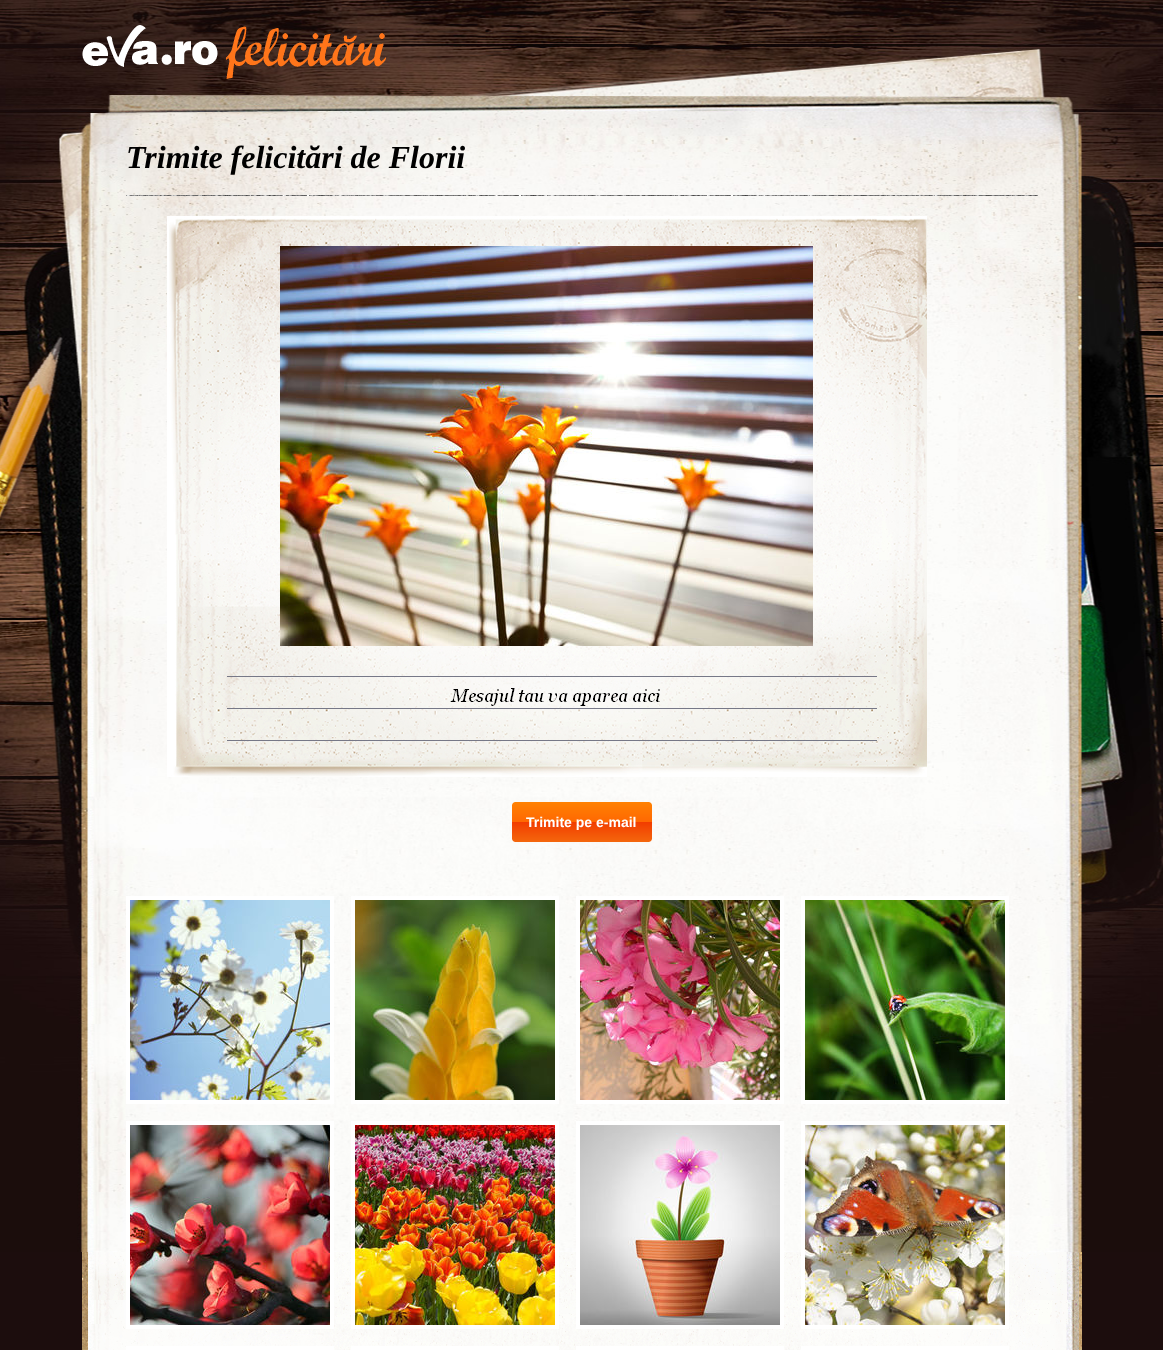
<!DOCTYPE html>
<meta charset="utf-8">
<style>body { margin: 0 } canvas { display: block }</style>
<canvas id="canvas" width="1163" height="1350"></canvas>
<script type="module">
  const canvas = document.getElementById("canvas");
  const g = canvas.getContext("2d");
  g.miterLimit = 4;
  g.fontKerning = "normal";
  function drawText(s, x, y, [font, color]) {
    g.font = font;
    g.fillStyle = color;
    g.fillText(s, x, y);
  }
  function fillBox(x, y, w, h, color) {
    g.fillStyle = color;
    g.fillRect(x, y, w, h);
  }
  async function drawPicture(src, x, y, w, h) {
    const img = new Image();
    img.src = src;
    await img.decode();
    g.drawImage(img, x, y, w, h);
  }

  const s1 = ["italic bold 32px Liberation Serif", "#000000"];
  const s2 = ["bold 14px Liberation Sans", "#FFFFFF"];

  fillBox(0, 0, 1163, 1350, "#1C0D0D");
  await drawPicture("pic1.png", 82, 1252, 1000, 98);
  await drawPicture("pic2.png", 0, 0, 1163, 1252);
  await drawPicture("pic3.png", 82, 25, 304, 54);
  await drawPicture("pic4.png", 126, 195, 912, 1);
  drawText("Trimite felicitări de Florii", 126, 168, s1);
  await drawPicture("pic5.png", 167, 216, 760, 561);
  await drawPicture("pic6.png", 280, 246, 533, 400);
  await drawPicture("pic7.png", 512, 802, 140, 40);
  drawText("Trimite pe e-mail", 526, 827, s2);
  g.strokeStyle = "#FFFFFF";
  g.lineWidth = 4;
  g.strokeRect(128, 898, 204, 204);
  await drawPicture("pic8.png", 130, 900, 200, 200);
  g.strokeRect(353, 898, 204, 204);
  await drawPicture("pic9.png", 355, 900, 200, 200);
  g.strokeRect(578, 898, 204, 204);
  await drawPicture("pic10.png", 580, 900, 200, 200);
  g.strokeRect(803, 898, 204, 204);
  await drawPicture("pic11.png", 805, 900, 200, 200);
  g.strokeRect(128, 1123, 204, 204);
  await drawPicture("pic12.png", 130, 1125, 200, 200);
  g.strokeRect(353, 1123, 204, 204);
  await drawPicture("pic13.png", 355, 1125, 200, 200);
  g.strokeRect(578, 1123, 204, 204);
  await drawPicture("pic14.png", 580, 1125, 200, 200);
  g.strokeRect(803, 1123, 204, 204);
  await drawPicture("pic15.png", 805, 1125, 200, 200);
  g.strokeRect(128, 1348, 204, 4);
  g.strokeRect(353, 1348, 204, 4);
  g.strokeRect(578, 1348, 204, 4);
  g.strokeRect(803, 1348, 204, 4);
</script>
